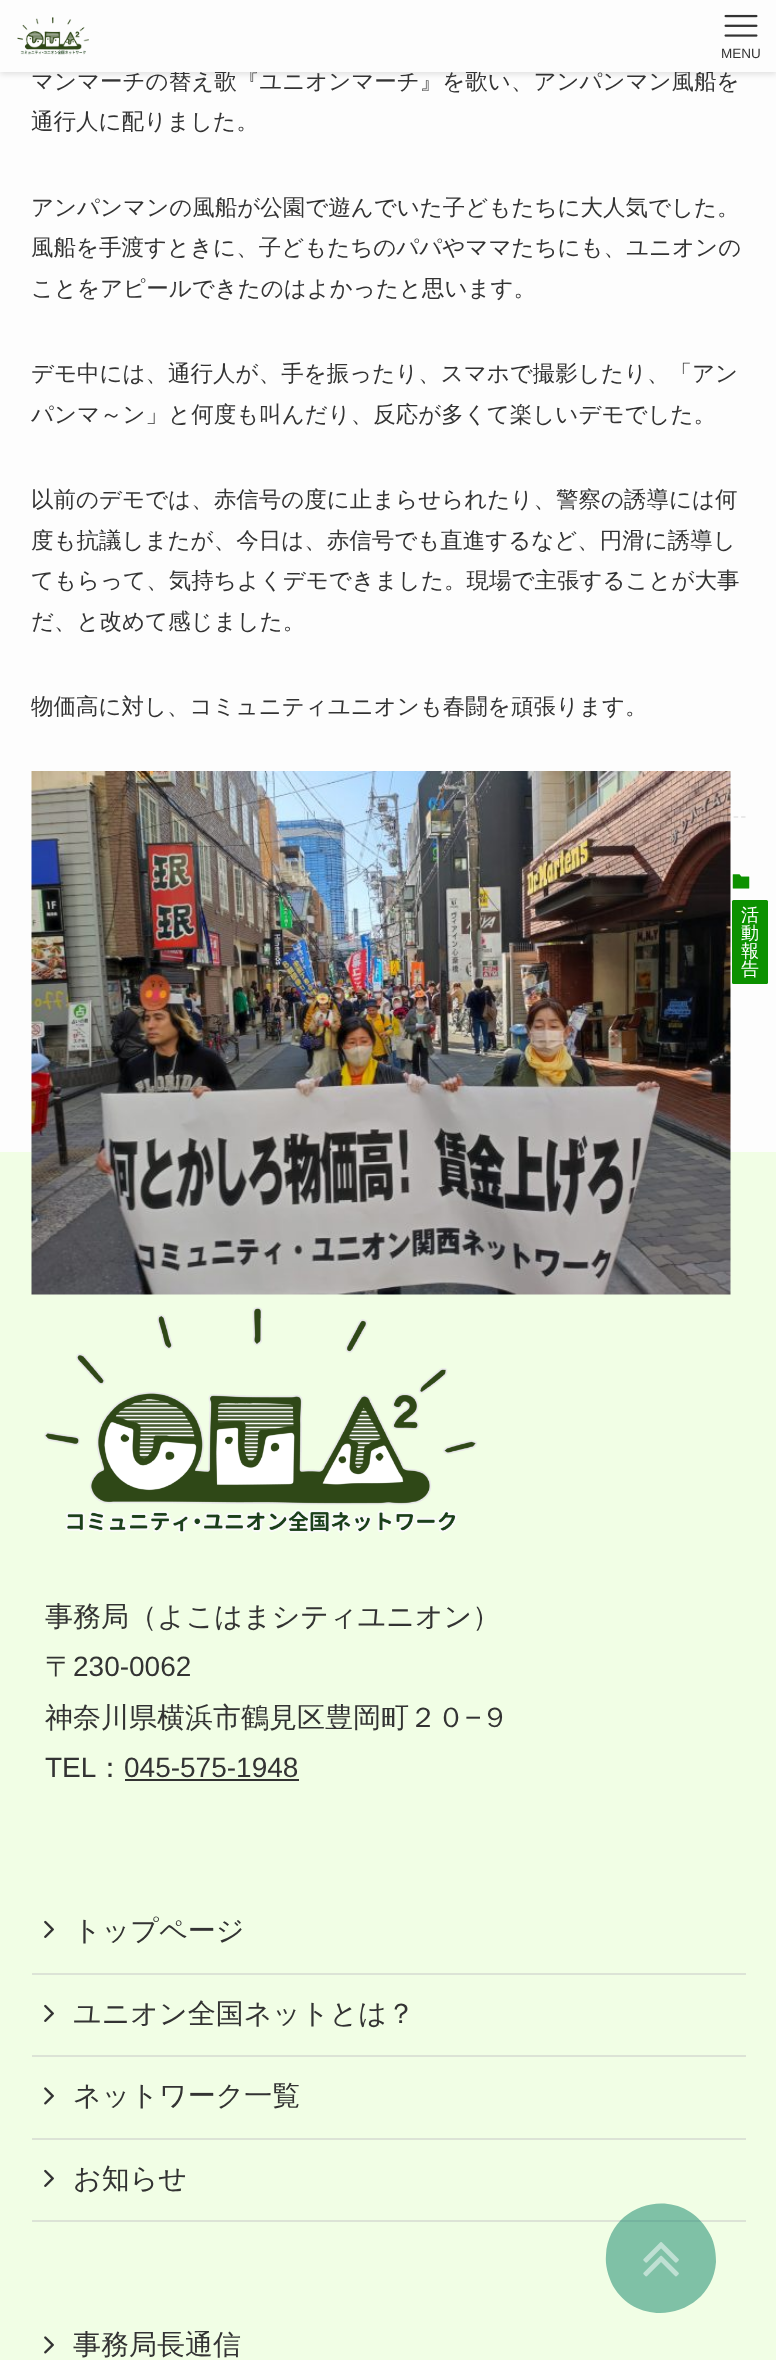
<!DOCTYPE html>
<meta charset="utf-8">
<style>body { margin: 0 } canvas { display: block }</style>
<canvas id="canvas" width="776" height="2360"></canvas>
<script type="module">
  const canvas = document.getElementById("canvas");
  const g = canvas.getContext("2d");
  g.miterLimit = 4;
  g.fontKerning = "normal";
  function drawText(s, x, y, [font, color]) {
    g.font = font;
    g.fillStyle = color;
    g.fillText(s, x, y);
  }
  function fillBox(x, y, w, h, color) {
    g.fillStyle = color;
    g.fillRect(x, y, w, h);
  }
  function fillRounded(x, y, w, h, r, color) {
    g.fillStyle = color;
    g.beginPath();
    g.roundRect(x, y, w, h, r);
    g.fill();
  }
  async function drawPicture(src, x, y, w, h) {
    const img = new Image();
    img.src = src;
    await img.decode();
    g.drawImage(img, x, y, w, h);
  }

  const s1 = ["500 22.5px WenQuanYi Zen Hei", "#333333"];
  const s2 = ["13.5px Liberation Sans", "#333333"];
  const s3 = ["500 18px WenQuanYi Zen Hei", "#FFFFFF"];
  const s4 = ["500 28px WenQuanYi Zen Hei", "#333333"];
  const s5 = ["28px Liberation Sans", "#333333"];

  fillBox(0, 0, 776, 2360, "#FDFDFD");
  g.fillStyle = "rgba(0, 0, 0, 0.12)";
  g.filter = "blur(3px)";
  g.beginPath();
  g.rect(0, 2, 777, 72);
  g.fill();
  g.filter = "none";
  drawText("マンマーチの替え歌『ユニオンマーチ』を歌い、アンパンマン風船を", 31, 89, s1);
  fillBox(0, 0, 776, 72, "#FDFDFD");
  await drawPicture("pic1.png", 17, 17, 72, 38);
  await drawPicture("pic2.png", 724, 14, 34, 23);
  drawText("MENU", 721, 58, s2);
  drawText("通行人に配りました。", 31, 129, s1);
  drawText("アンパンマンの風船が公園で遊んでいた子どもたちに大人気でした。", 31, 215, s1);
  drawText("風船を手渡すときに、子どもたちのパパやママたちにも、ユニオンの", 31, 255, s1);
  drawText("ことをアピールできたのはよかったと思います。", 31, 296, s1);
  drawText("デモ中には、通行人が、手を振ったり、スマホで撮影したり、「アン", 31, 381, s1);
  drawText("パンマ～ン」と何度も叫んだり、反応が多くて楽しいデモでした。", 31, 422, s1);
  drawText("以前のデモでは、赤信号の度に止まらせられたり、警察の誘導には何", 31, 507, s1);
  drawText("度も抗議しまたが、今日は、赤信号でも直進するなど、円滑に誘導し", 31, 548, s1);
  drawText("てもらって、気持ちよくデモできました。現場で主張することが大事", 31, 588, s1);
  drawText("だ、と改めて感じました。", 31, 629, s1);
  drawText("物価高に対し、コミュニティユニオンも春闘を頑張ります。", 31, 714, s1);
  g.beginPath();
  g.moveTo(31.5, 817);
  g.lineTo(745.5, 817);
  g.strokeStyle = "#E2E2E2";
  g.lineWidth = 1.5;
  g.setLineDash([4.5, 2.97]);
  g.stroke();
  fillBox(0, 1152, 776, 1208, "#F1FEE5");
  await drawPicture("pic3.png", 31, 771, 700, 524);
  await drawPicture("pic4.png", 732, 874, 18, 15);
  fillRounded(732, 900, 36, 84, 1.5, "#0C9100");
  drawText("活", 741, 921, s3);
  drawText("動", 741, 939, s3);
  drawText("報", 741, 957, s3);
  drawText("告", 741, 975, s3);
  await drawPicture("pic5.png", 44, 1307, 433, 227);
  drawText("事務局（よこはまシティユニオン）", 45, 1626, s4);
  drawText("〒", 45, 1676, s4);
  drawText("230-0062", 73, 1676, s5);
  drawText("神奈川県横浜市鶴見区豊岡町２０", 45, 1727, s4);
  drawText("−", 465, 1727, s5);
  drawText("９", 481, 1727, s4);
  drawText("TEL", 45, 1777, s5);
  drawText("：", 96, 1777, s4);
  drawText("045-575-1948", 124, 1777, s5);
  fillBox(125, 1779, 174, 2, "#333333");
  fillBox(32, 1973, 714, 2, "#DCE3D6");
  await drawPicture("pic6.png", 44, 1920, 10, 18);
  drawText("トップページ", 73, 1940, s4);
  fillBox(32, 2055, 714, 2, "#DCE3D6");
  await drawPicture("pic6.png", 44, 2004, 10, 18);
  drawText("ユニオン全国ネットとは？", 73, 2023, s4);
  fillBox(32, 2138, 714, 2, "#DCE3D6");
  await drawPicture("pic7.png", 44, 2087, 10, 18);
  drawText("ネットワーク一覧", 73, 2105, s4);
  fillBox(32, 2220, 714, 2, "#DCE3D6");
  await drawPicture("pic6.png", 44, 2169, 10, 18);
  drawText("お知らせ", 73, 2188, s4);
  await drawPicture("pic7.png", 44, 2336, 10, 18);
  drawText("事務局長通信", 73, 2354, s4);
  g.fillStyle = "rgba(13, 132, 104, 0.5)";
  g.beginPath();
  g.moveTo(708, 2231);
  g.bezierCurveTo(714, 2240, 716, 2251, 716, 2262);
  g.bezierCurveTo(712, 2316, 640, 2332, 613, 2286);
  g.bezierCurveTo(608, 2276, 605, 2265, 606, 2255);
  g.bezierCurveTo(609, 2201, 681, 2184, 708, 2231);
  g.closePath();
  g.fill();
  await drawPicture("pic8.png", 643, 2242, 36, 35);
</script>
